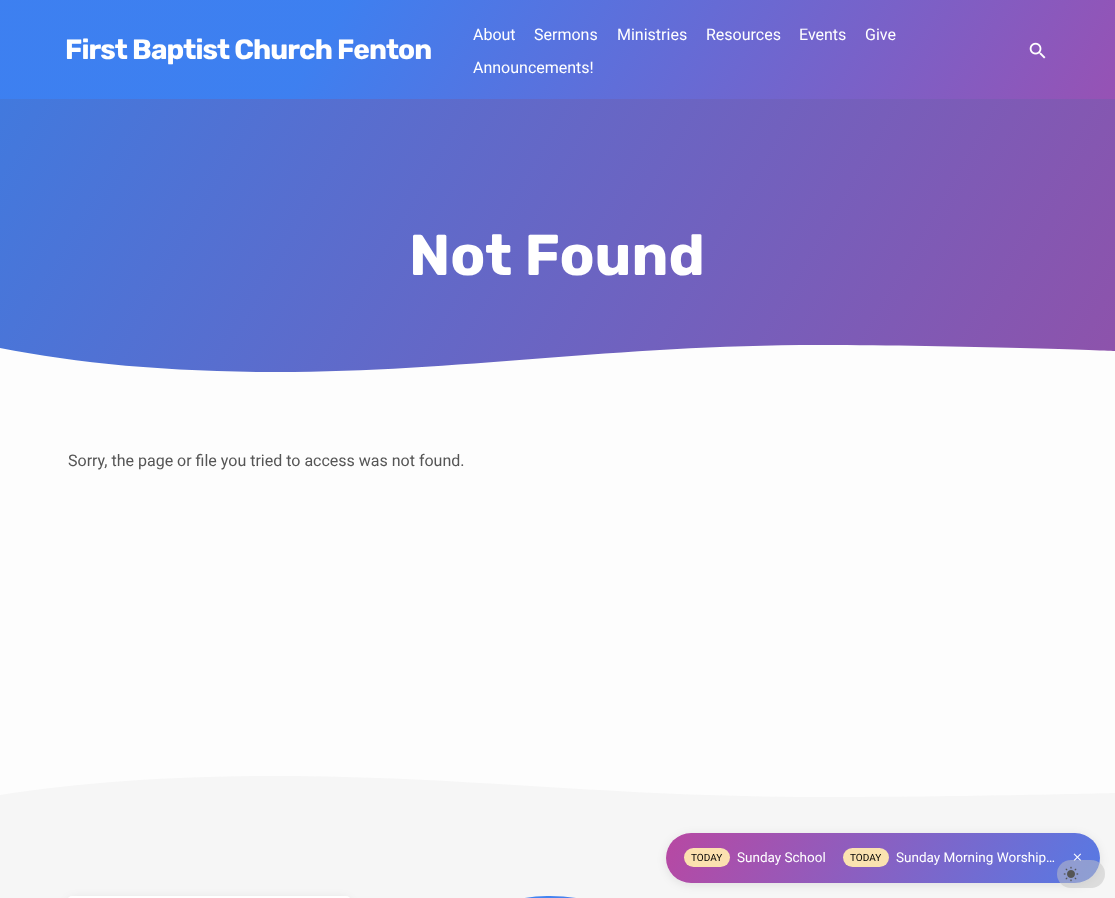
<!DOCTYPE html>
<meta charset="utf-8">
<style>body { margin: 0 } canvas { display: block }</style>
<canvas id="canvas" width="1115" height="898"></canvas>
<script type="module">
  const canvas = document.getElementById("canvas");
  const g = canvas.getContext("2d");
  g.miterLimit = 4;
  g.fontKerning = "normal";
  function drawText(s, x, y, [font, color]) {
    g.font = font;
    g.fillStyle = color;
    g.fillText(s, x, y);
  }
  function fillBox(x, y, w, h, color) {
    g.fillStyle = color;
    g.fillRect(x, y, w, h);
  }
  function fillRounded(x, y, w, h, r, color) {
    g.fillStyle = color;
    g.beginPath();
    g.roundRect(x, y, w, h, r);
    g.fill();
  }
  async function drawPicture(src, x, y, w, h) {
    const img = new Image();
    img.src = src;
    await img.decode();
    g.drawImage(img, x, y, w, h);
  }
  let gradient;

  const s1 = ["bold 28px Rubik", "#FFFFFF"];
  const s2 = ["16px Roboto", "#FFFFFF"];
  const s3 = ["bold 57.5px Rubik", "#FFFFFF"];
  const s4 = ["16px Roboto", "#555555"];
  const s5 = ["10px Roboto", "#000000"];
  const s6 = ["13.5px Roboto", "#FFFFFF"];

  fillBox(0, 0, 1115, 898, "#FDFDFD");
  gradient = g.createLinearGradient(59, -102, 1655, 819);
  gradient.addColorStop(0, "#3E7BE0");
  gradient.addColorStop(1, "#BE3A8B");
  g.fillStyle = gradient;
  g.fillRect(0, 0, 1115, 372);
  gradient = g.createLinearGradient(118, -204, 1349, 506);
  gradient.addColorStop(0.21, "rgba(61, 128, 241, 0.97)");
  gradient.addColorStop(1, "rgba(202, 56, 146, 0.97)");
  g.fillStyle = gradient;
  g.fillRect(0, 0, 1115, 99);
  g.letterSpacing = "-0.9px";
  drawText("First Baptist Church Fenton", 65, 59, s1);
  g.letterSpacing = "0px";
  drawText("About", 473, 40, s2);
  drawText("Sermons", 534, 40, s2);
  drawText("Ministries", 617, 40, s2);
  drawText("Resources", 706, 40, s2);
  drawText("Events", 799, 40, s2);
  drawText("Give", 865, 40, s2);
  drawText("Announcements!", 473, 73, s2);
  await drawPicture("pic1.png", 1029, 42, 17, 17);
  drawText("Not Found", 409, 275, s3);
  g.fillStyle = "#FDFDFD";
  g.beginPath();
  g.moveTo(0, 348);
  g.bezierCurveTo(76, 363, 167, 372, 277, 372);
  g.bezierCurveTo(461, 372, 611, 345, 820, 345);
  g.bezierCurveTo(960, 345, 1115, 351, 1115, 351);
  g.lineTo(1115, 373);
  g.lineTo(0, 373);
  g.fill();
  drawText("Sorry, the page or file you tried to access was not found.", 68, 466, s4);
  fillBox(0, 776, 1115, 122, "#F6F6F6");
  g.fillStyle = "#FDFDFD";
  g.beginPath();
  g.moveTo(0, 795);
  g.bezierCurveTo(76, 783, 167, 776, 277, 776);
  g.bezierCurveTo(461, 776, 611, 797, 820, 797);
  g.bezierCurveTo(960, 797, 1115, 793, 1115, 793);
  g.lineTo(1115, 775);
  g.lineTo(0, 775);
  g.fill();
  g.fillStyle = "rgba(0, 0, 0, 0.09)";
  g.filter = "blur(5px)";
  g.beginPath();
  g.roundRect(67, 898, 284, 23, 8);
  g.fill();
  g.filter = "none";
  fillRounded(67, 896, 284, 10, 8, "#FFFFFF");
  gradient = g.createLinearGradient(388, 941, 858, 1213);
  gradient.addColorStop(0.21, "#4384F1");
  gradient.addColorStop(1, "#CB3E95");
  g.fillStyle = gradient;
  g.beginPath();
  g.moveTo(547, 896);
  g.bezierCurveTo(474, 896, 414, 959, 414, 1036);
  g.lineTo(414, 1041);
  g.bezierCurveTo(414, 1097, 460, 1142, 516, 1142);
  g.lineTo(519, 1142);
  g.bezierCurveTo(618, 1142, 698, 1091, 698, 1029);
  g.lineTo(698, 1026);
  g.bezierCurveTo(698, 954, 632, 896, 550, 896);
  g.closePath();
  g.fill();
  g.save();
  g.beginPath();
  g.moveTo(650, 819);
  g.lineTo(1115, 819);
  g.lineTo(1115, 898);
  g.lineTo(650, 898);
  g.closePath();
  g.moveTo(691, 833);
  g.lineTo(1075, 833);
  g.bezierCurveTo(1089, 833, 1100, 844, 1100, 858);
  g.bezierCurveTo(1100, 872, 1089, 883, 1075, 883);
  g.lineTo(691, 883);
  g.bezierCurveTo(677, 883, 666, 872, 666, 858);
  g.bezierCurveTo(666, 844, 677, 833, 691, 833);
  g.closePath();
  g.clip("evenodd");
  g.fillStyle = "rgba(0, 0, 0, 0.09)";
  g.filter = "blur(5px)";
  g.beginPath();
  g.roundRect(666, 835, 434, 50, 25);
  g.fill();
  g.filter = "none";
  g.restore();
  gradient = g.createLinearGradient(640, 718, 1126, 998);
  gradient.addColorStop(0, "rgba(202, 56, 146, 0.97)");
  gradient.addColorStop(1, "rgba(61, 128, 241, 0.97)");
  g.fillStyle = gradient;
  g.beginPath();
  g.roundRect(666, 833, 434, 50, 25);
  g.fill();
  fillRounded(684, 848, 46, 19, 9.5, "rgba(254, 230, 175, 0.97)");
  drawText("TODAY", 691, 861, s5);
  drawText("Sunday School", 737, 862, s6);
  fillRounded(843, 848, 46, 19, 9.5, "rgba(254, 230, 175, 0.97)");
  drawText("TODAY", 850, 861, s5);
  drawText("Sunday Morning Worship…", 896, 862, s6);
  await drawPicture("pic2.png", 1073, 853, 8, 8);
  fillRounded(1057, 860, 48, 28, 14, "rgba(195, 195, 195, 0.5)");
  await drawPicture("pic3.png", 1063, 866, 16, 16);
</script>
